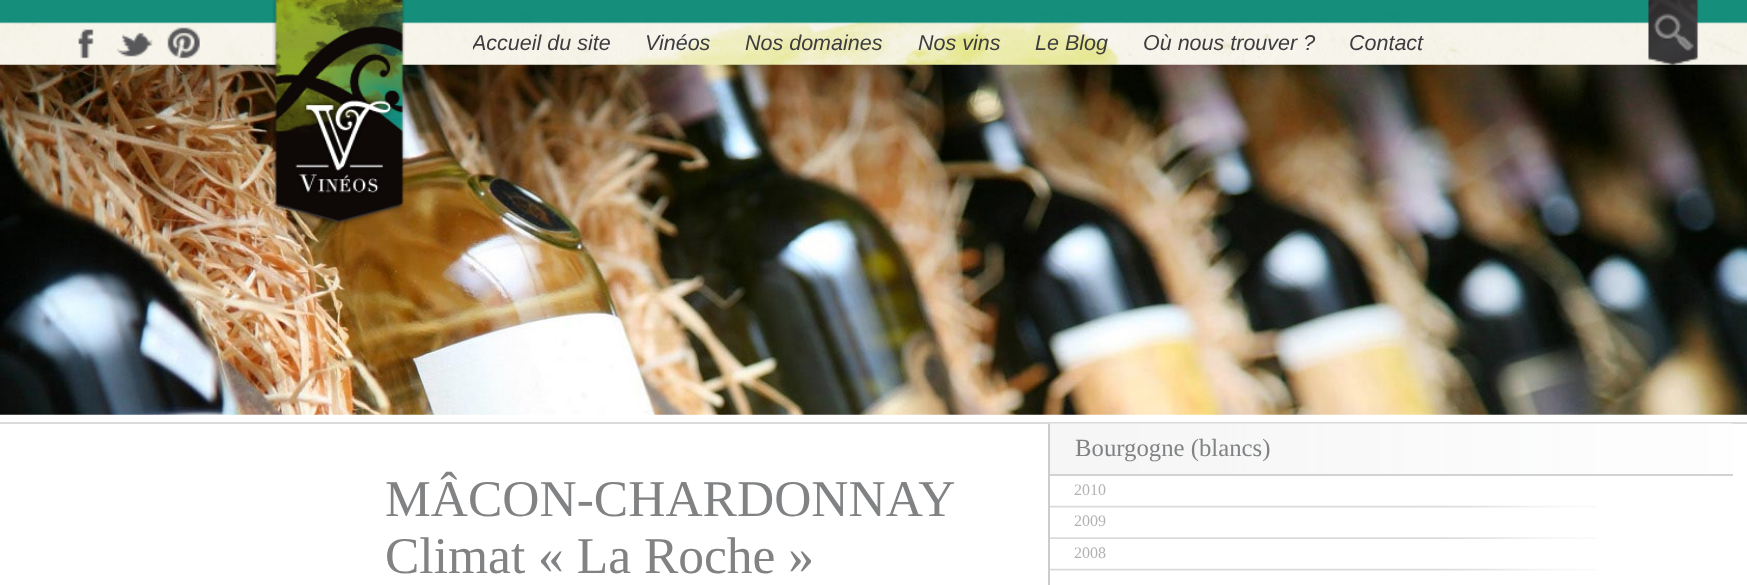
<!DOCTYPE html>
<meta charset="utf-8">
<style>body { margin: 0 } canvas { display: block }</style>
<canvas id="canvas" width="1747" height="585"></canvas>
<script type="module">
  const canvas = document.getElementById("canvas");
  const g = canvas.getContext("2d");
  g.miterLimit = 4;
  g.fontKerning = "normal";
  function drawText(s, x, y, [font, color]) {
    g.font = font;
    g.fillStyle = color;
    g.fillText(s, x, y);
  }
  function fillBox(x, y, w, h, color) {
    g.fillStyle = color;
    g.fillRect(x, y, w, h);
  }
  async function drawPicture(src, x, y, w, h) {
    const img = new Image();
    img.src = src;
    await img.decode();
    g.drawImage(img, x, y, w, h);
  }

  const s1 = ["italic 21.5px Liberation Sans", "#3D3D3F"];
  const s2 = ["51.5px Liberation Serif", "#808284"];
  const s3 = ["24.75px Liberation Serif", "#808284"];
  const s4 = ["16px Liberation Serif", "#B1B2B4"];

  fillBox(0, 0, 1747, 585, "#FFFFFF");
  await drawPicture("pic1.png", 0, 0, 1747, 65);
  await drawPicture("pic2.png", 78, 29, 16, 30);
  await drawPicture("pic3.png", 117, 32, 36, 25);
  await drawPicture("pic4.png", 167, 27, 33, 32);
  await drawPicture("pic6.png", 1648, 0, 51, 65);
  await drawPicture("pic7.png", 0, 64, 1747, 351);
  await drawPicture("pic5.png", 272, 0, 133, 226);
  g.save();
  g.beginPath();
  g.rect(473, 16, 1242, 51);
  g.clip();
  drawText("Accueil du site", 472, 50, s1);
  g.restore();
  drawText("Vinéos", 645, 50, s1);
  drawText("Nos domaines", 745, 50, s1);
  drawText("Nos vins", 918, 50, s1);
  drawText("Le Blog", 1035, 50, s1);
  drawText("Où nous trouver ?", 1143, 50, s1);
  drawText("Contact", 1349, 50, s1);
  fillBox(0, 422, 1747, 2, "#D9DADB");
  drawText("MÂCON-CHARDONNAY", 385, 516, s2);
  drawText("Climat « La Roche »", 385, 573, s2);
  fillBox(1048, 424, 2, 161, "#CCCCCC");
  await drawPicture("pic8.png", 1050, 423, 683, 51);
  fillBox(1050, 474, 683, 2, "#D1D2D4");
  drawText("Bourgogne (blancs)", 1075, 456, s3);
  drawText("2010", 1074, 495, s4);
  await drawPicture("pic9.png", 1050, 505, 547, 3);
  drawText("2009", 1074, 526, s4);
  await drawPicture("pic10.png", 1050, 537, 547, 2);
  drawText("2008", 1074, 558, s4);
  await drawPicture("pic9.png", 1050, 568, 547, 3);
</script>
